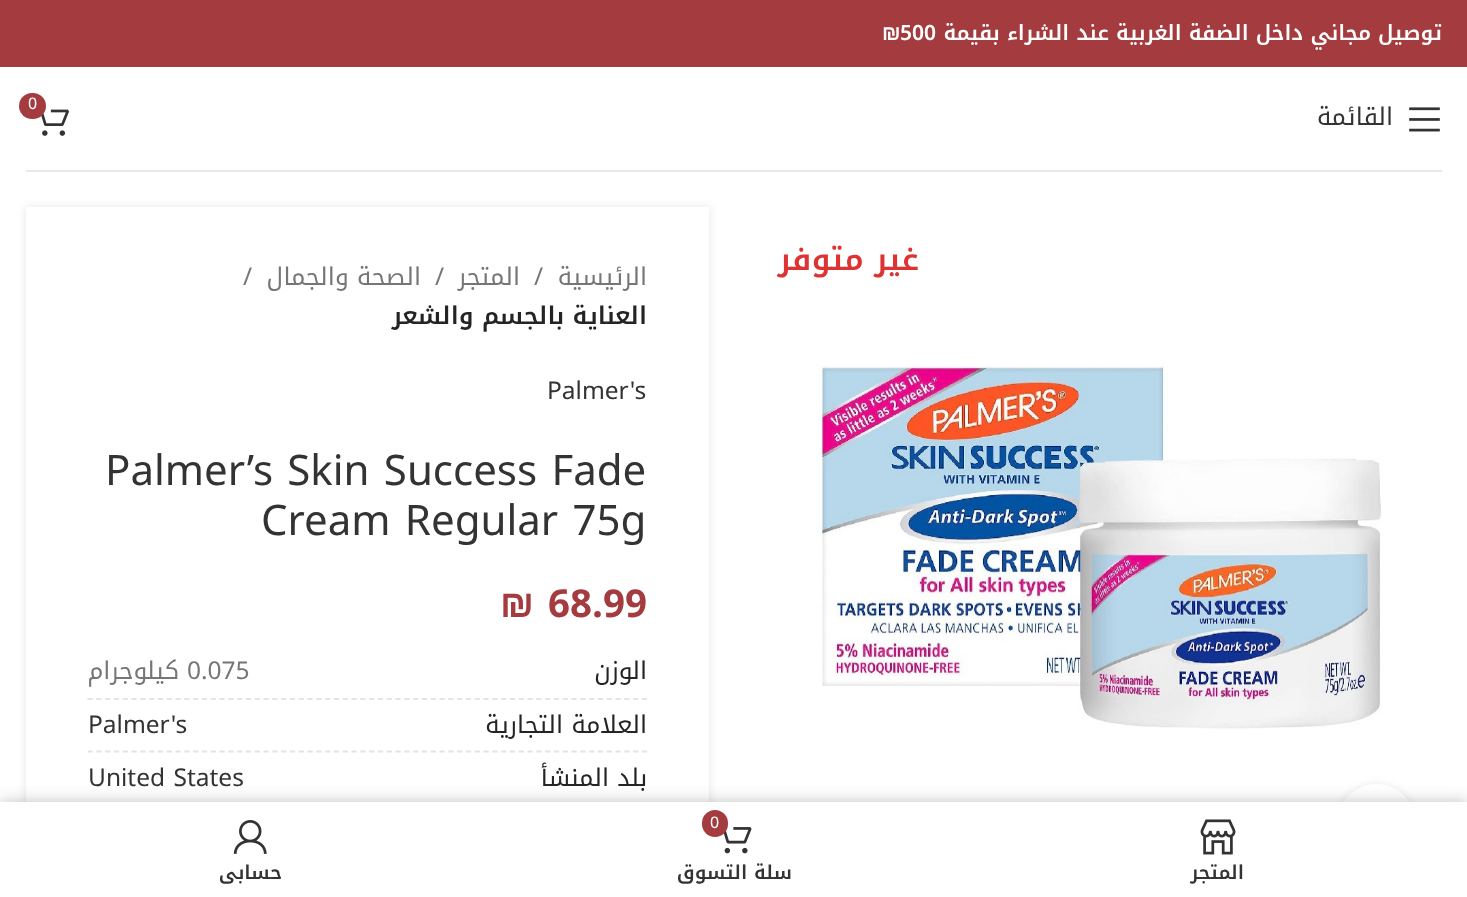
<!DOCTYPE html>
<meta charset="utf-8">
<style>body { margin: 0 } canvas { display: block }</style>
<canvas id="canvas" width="1467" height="897"></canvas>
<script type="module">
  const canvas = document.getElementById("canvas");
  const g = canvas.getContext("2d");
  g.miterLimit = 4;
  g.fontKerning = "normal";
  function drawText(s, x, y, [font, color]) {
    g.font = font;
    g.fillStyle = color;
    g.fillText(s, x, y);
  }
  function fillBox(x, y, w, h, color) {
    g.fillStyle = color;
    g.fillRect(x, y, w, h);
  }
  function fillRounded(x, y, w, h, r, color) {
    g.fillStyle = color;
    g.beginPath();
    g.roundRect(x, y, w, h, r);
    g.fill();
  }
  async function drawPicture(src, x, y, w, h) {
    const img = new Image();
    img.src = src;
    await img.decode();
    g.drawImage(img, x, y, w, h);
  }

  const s1 = ["600 21px Noto Kufi Arabic", "#FFFFFF"];
  const s2 = ["bold 21px Liberation Sans", "#FFFFFF"];
  const s3 = ["16px Noto Kufi Arabic", "#FFFFFF"];
  const s4 = ["24.5px Noto Kufi Arabic", "#333333"];
  const s5 = ["600 31.5px Noto Kufi Arabic", "#DD3333"];
  const s6 = ["24.5px Noto Kufi Arabic", "#767676"];
  const s7 = ["600 24.5px Noto Kufi Arabic", "#242424"];
  const s8 = ["42px Noto Kufi Arabic", "#333333"];
  const s9 = ["bold 38.5px Noto Kufi Arabic", "#A43B3E"];
  const s10 = ["bold 38.5px Liberation Sans", "#A43B3E"];
  const s11 = ["24.5px Noto Kufi Arabic", "#242424"];
  const s12 = ["600 19.25px Noto Kufi Arabic", "#333333"];

  fillBox(0, 0, 1467, 897, "#FFFFFF");
  fillBox(0, 0, 1467, 67, "#A43B3E");
  g.direction = "rtl";
  drawText("توصيل مجاني داخل الضفة الغربية عند الشراء بقيمة", 1442, 40, s1);
  g.direction = "ltr";
  drawText("500", 900, 40, s1);
  drawText("₪", 882, 40, s2);
  fillBox(26, 170, 1416, 2, "#E8E8E8");
  await drawPicture("pic1.png", 41, 109, 28, 27);
  fillRounded(19, 93, 27, 26, 13, "#A43B3E");
  drawText("0", 28, 109, s3);
  await drawPicture("pic2.png", 1409, 107, 31, 25);
  g.direction = "rtl";
  drawText("القائمة", 1393, 125, s4);
  drawText("غير متوفر", 919, 270, s5);
  await drawPicture("pic3.png", 816, 364, 565, 365);
  g.fillStyle = "rgba(0, 0, 0, 0.08)";
  g.filter = "blur(4.5px)";
  g.beginPath();
  g.roundRect(1337, 784, 79, 79, 39.5);
  g.fill();
  g.filter = "none";
  g.fillStyle = "#FFFFFF";
  g.beginPath();
  g.arc(1376.5, 823.5, 39.5, 0, Math.PI * 2);
  g.fill();
  g.fillStyle = "rgba(0, 0, 0, 0.1)";
  g.filter = "blur(4.5px)";
  g.beginPath();
  g.rect(26, 207, 683, 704);
  g.fill();
  g.filter = "none";
  fillBox(26, 207, 683, 595, "#FFFFFF");
  drawText("الرئيسية", 647, 285, s6);
  g.direction = "ltr";
  drawText("/", 534, 285, s6);
  g.direction = "rtl";
  drawText("المتجر", 520, 285, s6);
  g.direction = "ltr";
  drawText("/", 435, 285, s6);
  g.direction = "rtl";
  drawText("الصحة والجمال", 421, 285, s6);
  g.direction = "ltr";
  drawText("/", 243, 285, s6);
  g.direction = "rtl";
  drawText("العناية بالجسم والشعر", 647, 324, s7);
  g.direction = "ltr";
  drawText("Palmer's", 547, 399, s4);
  drawText("Palmer’s Skin Success Fade", 105, 485, s8);
  drawText("Cream Regular 75g", 261, 535, s8);
  drawText("68.99", 548, 617, s9);
  drawText("₪", 500, 617, s10);
  g.beginPath();
  g.moveTo(87.5, 699);
  g.lineTo(647.5, 699);
  g.strokeStyle = "#E4E4E4";
  g.lineWidth = 1.8;
  g.setLineDash([5.25, 3.55]);
  g.stroke();
  g.direction = "rtl";
  drawText("الوزن", 647, 679, s11);
  g.direction = "ltr";
  drawText("0.075", 187, 679, s6);
  g.direction = "rtl";
  drawText("كيلوجرام", 179, 679, s6);
  g.save();
  g.beginPath();
  g.rect(88, 655, 560, 141);
  g.clip();
  g.beginPath();
  g.moveTo(87.5, 751.5);
  g.lineTo(647.5, 751.5);
  g.stroke();
  g.restore();
  drawText("العلامة التجارية", 647, 733, s11);
  g.direction = "ltr";
  drawText("Palmer's", 88, 733, s4);
  g.direction = "rtl";
  drawText("بلد المنشأ", 647, 786, s11);
  g.direction = "ltr";
  drawText("United States", 88, 786, s4);
  g.fillStyle = "rgba(0, 0, 0, 0.12)";
  g.filter = "blur(8px)";
  g.beginPath();
  g.rect(0, 802, 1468, 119);
  g.fill();
  g.filter = "none";
  g.filter = "blur(8px)";
  g.beginPath();
  g.rect(0, 802, 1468, 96);
  g.fill();
  g.filter = "none";
  fillBox(0, 802, 1467, 95, "#FFFFFF");
  await drawPicture("pic4.png", 1200, 819, 36, 36);
  g.direction = "rtl";
  drawText("المتجر", 1244, 879, s12);
  await drawPicture("pic5.png", 723, 827, 29, 27);
  fillRounded(702, 810, 26, 27, 13, "#A43B3E");
  g.direction = "ltr";
  drawText("0", 710, 828, s3);
  g.direction = "rtl";
  drawText("سلة التسوق", 792, 879, s12);
  await drawPicture("pic6.png", 233, 820, 34, 34);
  g.save();
  g.beginPath();
  g.rect(26, 861, 448, 23);
  g.clip();
  drawText("حسابي", 282, 879, s12);
  g.restore();
</script>
